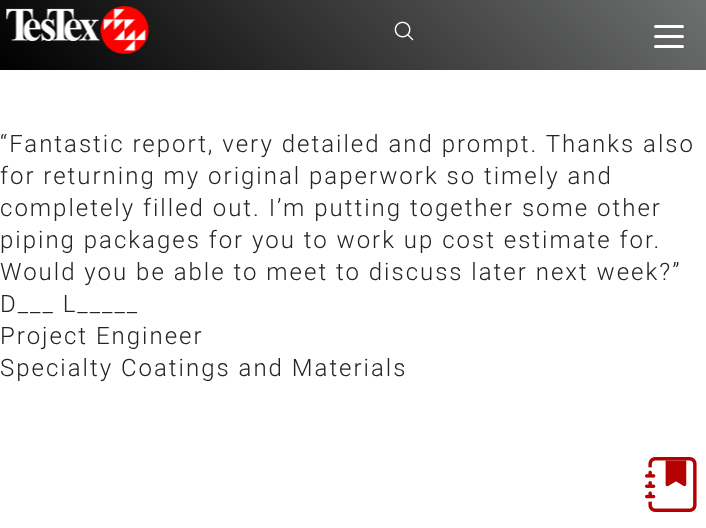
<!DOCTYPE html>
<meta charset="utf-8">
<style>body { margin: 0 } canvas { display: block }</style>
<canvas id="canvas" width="706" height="528"></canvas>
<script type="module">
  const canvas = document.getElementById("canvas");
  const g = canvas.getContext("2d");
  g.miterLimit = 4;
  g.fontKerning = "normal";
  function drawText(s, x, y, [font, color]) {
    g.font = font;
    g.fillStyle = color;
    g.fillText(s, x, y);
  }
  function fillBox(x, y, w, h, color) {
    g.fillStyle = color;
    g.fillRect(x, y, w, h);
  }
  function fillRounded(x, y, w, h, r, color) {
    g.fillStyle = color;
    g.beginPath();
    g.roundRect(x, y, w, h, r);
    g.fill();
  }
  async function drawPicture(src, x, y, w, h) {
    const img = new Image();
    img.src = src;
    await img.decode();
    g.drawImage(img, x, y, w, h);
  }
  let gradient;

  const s1 = ["300 24px Roboto", "#212529"];

  fillBox(0, 0, 706, 528, "#FFFFFF");
  gradient = g.createLinearGradient(159, 229, 547, -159);
  gradient.addColorStop(0, "#000000");
  gradient.addColorStop(1, "#6E6F6F");
  g.fillStyle = gradient;
  g.fillRect(0, 0, 706, 70);
  await drawPicture("pic1.png", 6, 6, 143, 48);
  await drawPicture("pic2.png", 394, 21, 20, 20);
  fillRounded(654, 25, 30, 3, 1.5, "#FFFFFF");
  fillRounded(654, 35, 30, 3, 1.5, "#FFFFFF");
  fillRounded(654, 45, 30, 3, 1.5, "#FFFFFF");
  g.letterSpacing = "2px";
  drawText("“Fantastic report, very detailed and prompt. Thanks also", 0, 152, s1);
  drawText("for returning my original paperwork so timely and", 0, 184, s1);
  drawText("completely filled out. I’m putting together some other", 0, 216, s1);
  drawText("piping packages for you to work up cost estimate for.", 0, 248, s1);
  drawText("Would you be able to meet to discuss later next week?”", 0, 280, s1);
  drawText("D___ L_____", 0, 312, s1);
  drawText("Project Engineer", 0, 344, s1);
  drawText("Specialty Coatings and Materials", 0, 376, s1);
  await drawPicture("pic3.png", 645, 457, 52, 55);
</script>
